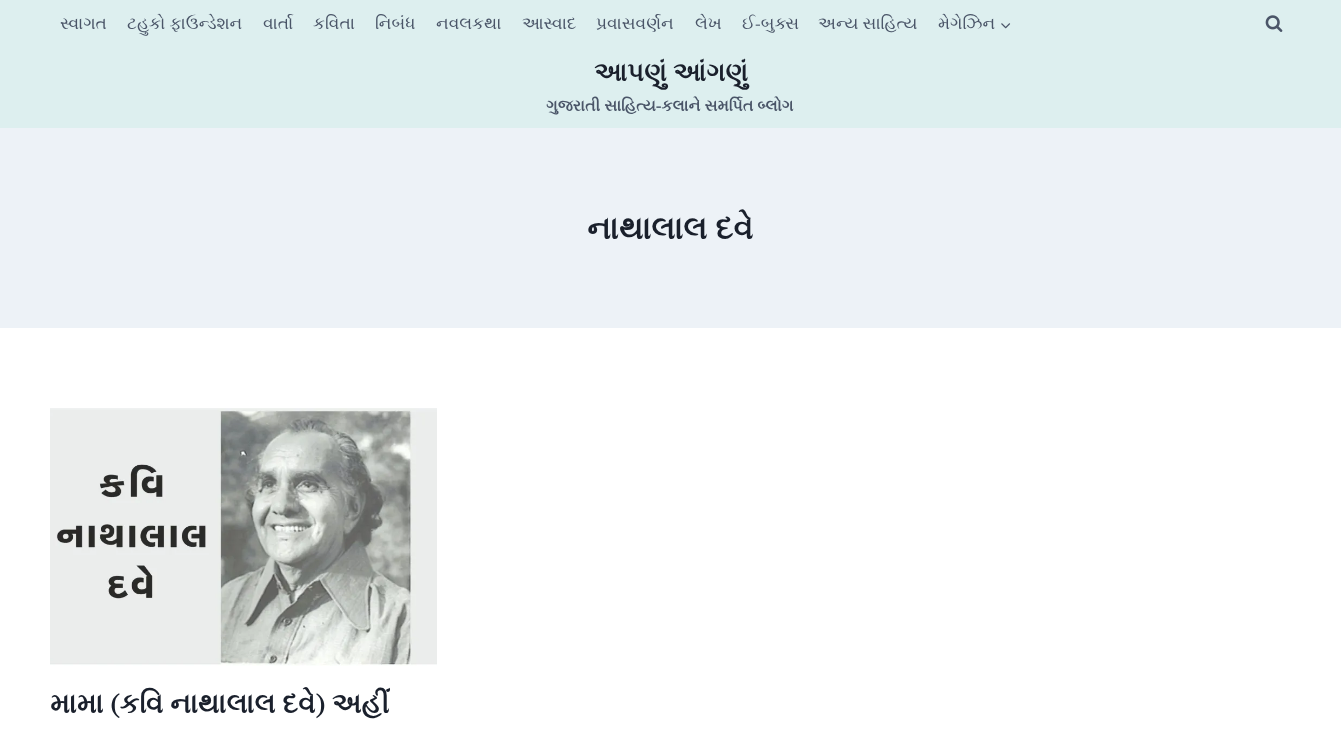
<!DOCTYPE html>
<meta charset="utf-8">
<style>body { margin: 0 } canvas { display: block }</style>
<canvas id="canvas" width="1341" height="740"></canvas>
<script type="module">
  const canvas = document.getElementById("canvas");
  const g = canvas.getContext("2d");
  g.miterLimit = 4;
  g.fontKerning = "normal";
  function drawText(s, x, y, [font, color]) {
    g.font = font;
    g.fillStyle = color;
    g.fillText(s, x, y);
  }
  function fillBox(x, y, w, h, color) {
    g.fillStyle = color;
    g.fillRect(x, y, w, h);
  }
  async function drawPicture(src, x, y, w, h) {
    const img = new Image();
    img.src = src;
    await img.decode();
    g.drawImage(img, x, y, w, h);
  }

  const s1 = ["17px FreeSerif", "#4A5568"];
  const s2 = ["bold 26px FreeSerif", "#1A202C"];
  const s3 = ["bold 16px FreeSerif", "#4A5568"];
  const s4 = ["bold 32px FreeSerif", "#1A202C"];
  const s5 = ["bold 28px FreeSerif", "#1A202C"];

  fillBox(0, 0, 1341, 740, "#FFFFFF");
  fillBox(0, 0, 1341, 128, "#DDEFEF");
  drawText("સ્વાગત", 60, 29, s1);
  drawText("ટહુકો ફાઉન્ડેશન", 127, 29, s1);
  drawText("વાર્તા", 263, 29, s1);
  drawText("કવિતા", 313, 29, s1);
  drawText("નિબંધ", 375, 29, s1);
  drawText("નવલકથા", 436, 29, s1);
  drawText("આસ્વાદ", 522, 29, s1);
  drawText("પ્રવાસવર્ણન", 596, 29, s1);
  drawText("લેખ", 695, 29, s1);
  drawText("ઈ-બુક્સ", 742, 29, s1);
  drawText("અન્ય સાહિત્ય", 818, 29, s1);
  drawText("મેગેઝિન", 938, 29, s1);
  await drawPicture("pic1.png", 1001, 23, 10, 6);
  await drawPicture("pic2.png", 1265, 15, 18, 17);
  drawText("આપણું આંગણું", 594, 81, s2);
  drawText("ગુજરાતી સાહિત્ય-કલાને સમર્પિત બ્લોગ", 546, 111, s3);
  fillBox(0, 128, 1341, 200, "#EDF2F7");
  drawText("નાથાલાલ દવે", 587, 239, s4);
  await drawPicture("pic3.png", 50, 408, 387, 258);
  drawText("મામા (કવિ નાથાલાલ દવે) અહીં", 50, 713, s5);
</script>
